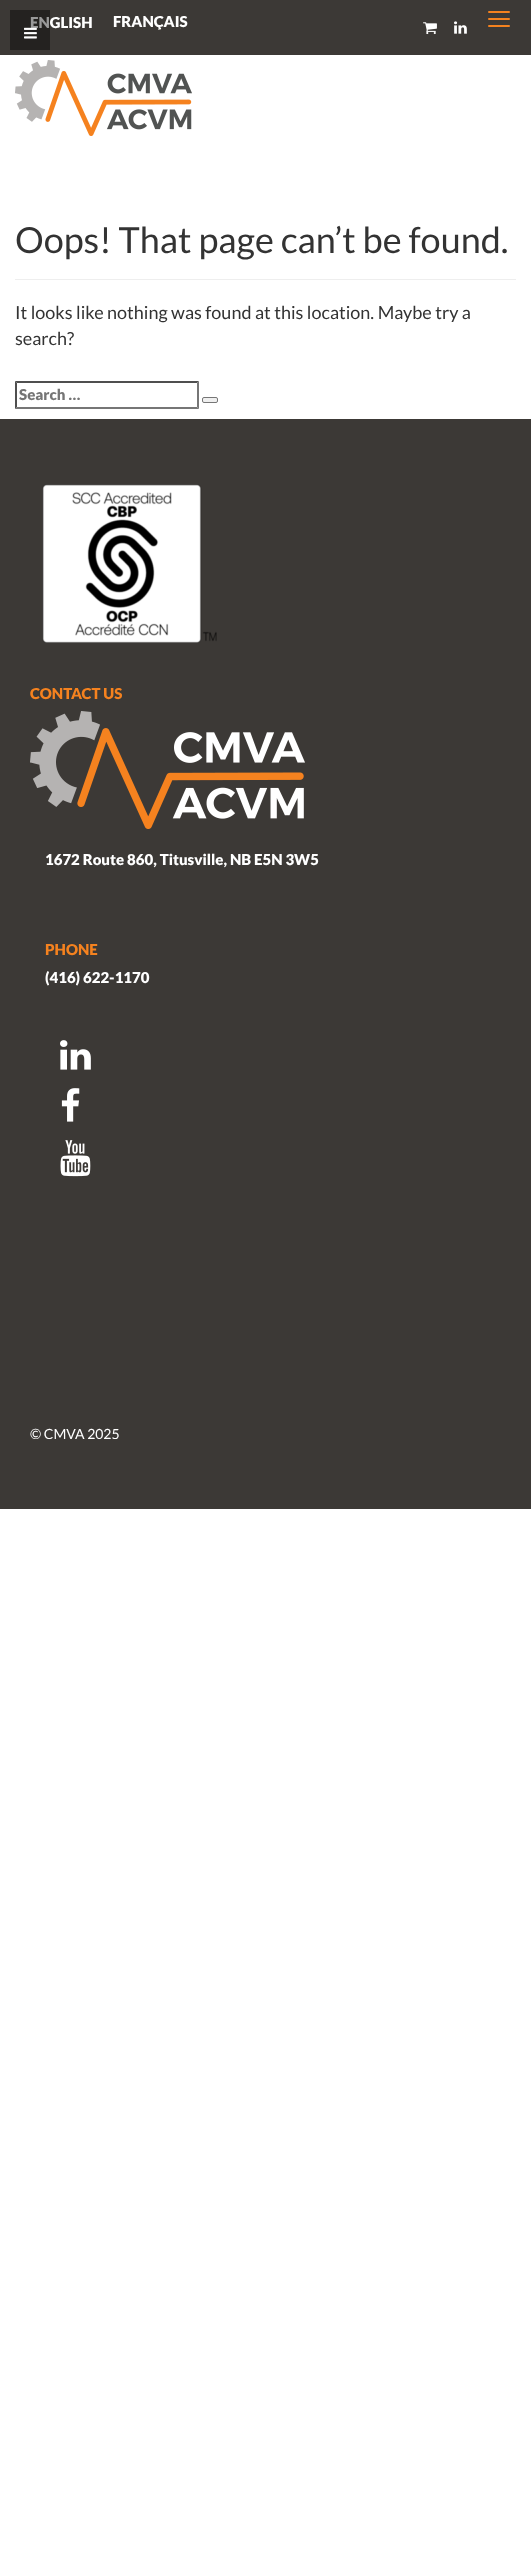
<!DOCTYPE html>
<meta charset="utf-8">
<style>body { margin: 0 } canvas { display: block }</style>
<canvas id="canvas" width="531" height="2553"></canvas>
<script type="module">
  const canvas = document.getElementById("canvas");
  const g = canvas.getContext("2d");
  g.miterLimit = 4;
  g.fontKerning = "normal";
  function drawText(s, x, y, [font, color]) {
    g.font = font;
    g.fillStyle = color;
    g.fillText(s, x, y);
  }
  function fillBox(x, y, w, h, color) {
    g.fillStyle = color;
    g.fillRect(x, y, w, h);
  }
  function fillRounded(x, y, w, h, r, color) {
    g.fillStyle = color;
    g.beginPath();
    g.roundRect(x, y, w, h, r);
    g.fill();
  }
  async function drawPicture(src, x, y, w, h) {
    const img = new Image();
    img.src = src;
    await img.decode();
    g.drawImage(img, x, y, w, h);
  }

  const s1 = ["900 15px Lato", "#FFFFFF"];
  const s2 = ["36px Lato", "#333333"];
  const s3 = ["18px Lato", "#333333"];
  const s4 = ["900 15px Lato", "#757575"];
  const s5 = ["900 15px Lato", "#F5821F"];
  const s6 = ["14px Lato", "#FFFFFF"];

  fillBox(0, 0, 531, 2553, "#FFFFFF");
  fillBox(0, 0, 531, 55, "#3C3936");
  drawText("ENGLISH", 30, 28, s1);
  fillBox(10, 10, 40, 40, "rgba(0, 0, 0, 0.4)");
  await drawPicture("pic1.png", 24, 27, 13, 12);
  await drawPicture("pic2.png", 15, 60, 177, 76);
  drawText("FRANÇAIS", 113, 27, s1);
  await drawPicture("pic3.png", 423, 22, 14, 13);
  await drawPicture("pic4.png", 454, 21, 13, 13);
  fillRounded(488, 11, 22, 2, 1, "#F5821F");
  fillRounded(488, 18, 22, 2, 1, "#F5821F");
  fillRounded(488, 25, 22, 2, 1, "#F5821F");
  fillBox(15, 279, 501, 1, "#EEEEEE");
  drawText("Oops! That page can’t be found.", 15, 253, s2);
  drawText("It looks like nothing was found at this location. Maybe try a", 15, 319, s3);
  drawText("search?", 15, 345, s3);
  g.fillStyle = "#4F4F4F";
  g.beginPath();
  g.moveTo(15, 381);
  g.lineTo(199, 381);
  g.lineTo(197, 383);
  g.lineTo(17, 383);
  g.closePath();
  g.fill();
  g.fillStyle = "#767676";
  g.beginPath();
  g.moveTo(199, 381);
  g.lineTo(199, 409);
  g.lineTo(197, 407);
  g.lineTo(197, 383);
  g.closePath();
  g.fill();
  g.beginPath();
  g.moveTo(199, 409);
  g.lineTo(15, 409);
  g.lineTo(17, 407);
  g.lineTo(197, 407);
  g.closePath();
  g.fill();
  g.fillStyle = "#4F4F4F";
  g.beginPath();
  g.moveTo(15, 409);
  g.lineTo(15, 381);
  g.lineTo(17, 383);
  g.lineTo(17, 407);
  g.closePath();
  g.fill();
  drawText("Search …", 19, 400, s4);
  g.fillStyle = "#EFEFEF";
  g.beginPath();
  g.roundRect(202.5, 397.5, 15, 5, 1.5);
  g.fill();
  g.strokeStyle = "#767676";
  g.stroke();
  fillBox(0, 419, 531, 1090, "#3C3936");
  await drawPicture("pic5.png", 42, 484, 175, 159);
  drawText("CONTACT US", 30, 699, s5);
  await drawPicture("pic6.png", 30, 711, 275, 118);
  drawText("1672 Route 860, Titusville, NB E5N 3W5", 45, 865, s1);
  drawText("PHONE", 45, 955, s5);
  drawText("(416) 622-1170", 45, 983, s1);
  await drawPicture("pic7.png", 60, 1040, 31, 30);
  await drawPicture("pic8.png", 61, 1088, 19, 34);
  await drawPicture("pic9.png", 60, 1140, 31, 37);
  drawText("© CMVA 2025", 30, 1439, s6);
</script>
